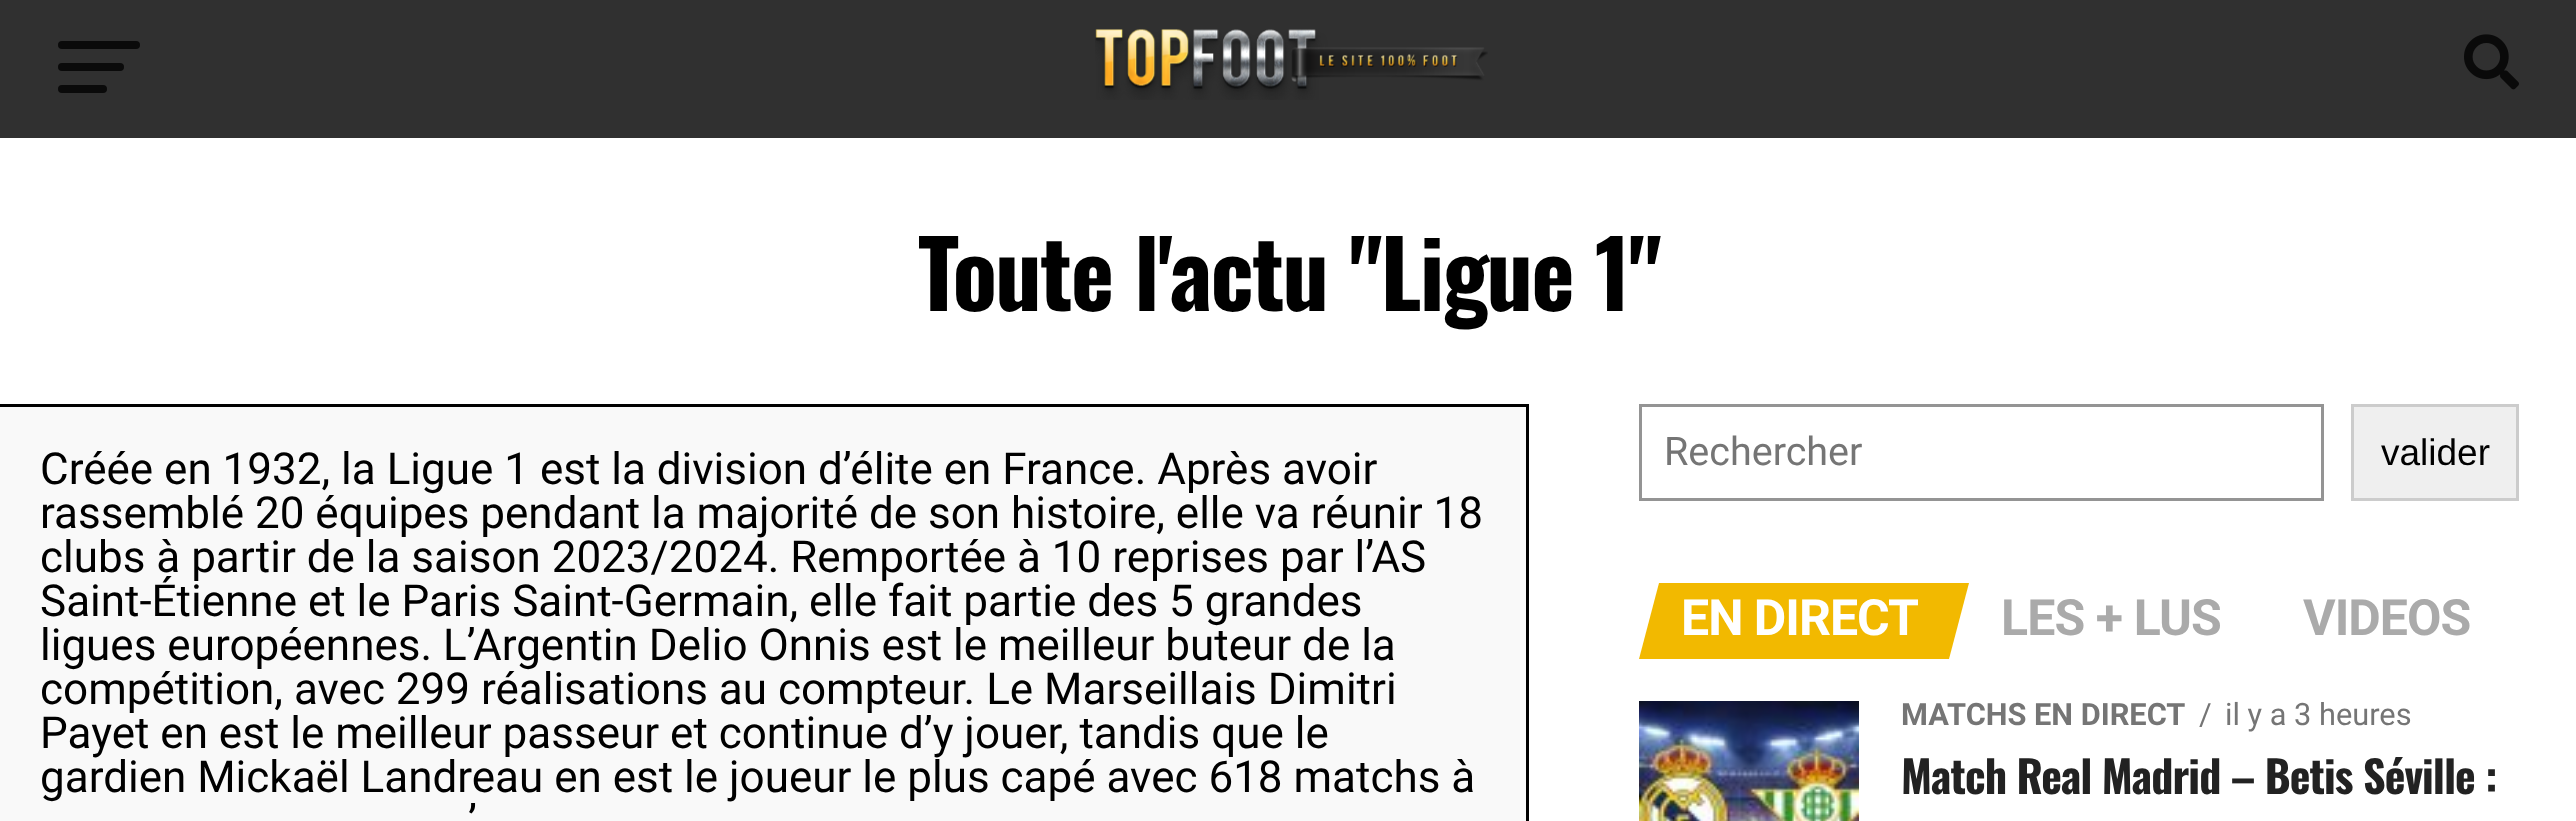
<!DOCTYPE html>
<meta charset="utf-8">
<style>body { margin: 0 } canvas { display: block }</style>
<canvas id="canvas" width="2576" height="821"></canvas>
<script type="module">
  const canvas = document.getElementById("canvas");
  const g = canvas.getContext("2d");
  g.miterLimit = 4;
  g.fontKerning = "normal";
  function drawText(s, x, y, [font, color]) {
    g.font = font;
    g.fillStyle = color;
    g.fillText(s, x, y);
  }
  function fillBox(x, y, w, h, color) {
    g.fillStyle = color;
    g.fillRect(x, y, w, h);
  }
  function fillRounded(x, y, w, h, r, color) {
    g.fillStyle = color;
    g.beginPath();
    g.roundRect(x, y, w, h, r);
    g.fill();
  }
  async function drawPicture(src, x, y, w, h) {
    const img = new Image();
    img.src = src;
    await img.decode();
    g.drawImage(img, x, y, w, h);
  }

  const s1 = ["bold 92.5px Oswald", "#000000"];
  const s2 = ["44px Roboto", "#000000"];
  const s3 = ["39.5px Roboto", "#757575"];
  const s4 = ["37px Liberation Sans", "#000000"];
  const s5 = ["bold 50px Roboto", "#FFFFFF"];
  const s6 = ["bold 50px Roboto", "#AAAAAA"];
  const s7 = ["bold 30.75px Roboto", "#757575"];
  const s8 = ["30.75px Roboto", "#757575"];
  const s9 = ["bold 44px Oswald", "#222222"];

  fillBox(0, 0, 2576, 821, "#FFFFFF");
  fillBox(0, 0, 2576, 138, "#303030");
  fillRounded(58, 41, 82, 8, 4, "#0A0A0A");
  fillRounded(58, 63, 66, 8, 4, "#0A0A0A");
  fillRounded(58, 85, 49, 8, 4, "#0A0A0A");
  await drawPicture("pic1.png", 1095, 29, 393, 71);
  await drawPicture("pic2.png", 2464, 34, 55, 56);
  g.letterSpacing = "-1.85px";
  drawText("Toute l'actu \"Ligue 1\"", 918, 311, s1);
  g.fillStyle = "#F9F9F9";
  g.beginPath();
  g.rect(-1.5, 405.5, 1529, 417);
  g.fill();
  g.strokeStyle = "#000000";
  g.lineWidth = 3;
  g.stroke();
  g.letterSpacing = "0px";
  drawText("Créée en 1932, la Ligue 1 est la division d’élite en France. Après avoir", 40, 484, s2);
  drawText("rassemblé 20 équipes pendant la majorité de son histoire, elle va réunir 18", 40, 528, s2);
  drawText("clubs à partir de la saison 2023/2024. Remportée à 10 reprises par l’AS", 40, 572, s2);
  drawText("Saint-Étienne et le Paris Saint-Germain, elle fait partie des 5 grandes", 40, 616, s2);
  drawText("ligues européennes. L’Argentin Delio Onnis est le meilleur buteur de la", 40, 660, s2);
  drawText("compétition, avec 299 réalisations au compteur. Le Marseillais Dimitri", 40, 704, s2);
  drawText("Payet en est le meilleur passeur et continue d’y jouer, tandis que le", 40, 748, s2);
  drawText("gardien Mickaël Landreau en est le joueur le plus capé avec 618 matchs à", 40, 792, s2);
  drawText("’", 468, 836, s2);
  g.strokeStyle = "#949494";
  g.strokeRect(1640.5, 405.5, 682, 94);
  drawText("Rechercher", 1664, 465, s3);
  g.fillStyle = "#EFEFEF";
  g.beginPath();
  g.rect(2352.5, 405.5, 165, 94);
  g.fill();
  g.strokeStyle = "#CCCCCC";
  g.stroke();
  drawText("valider", 2381, 465, s4);
  g.fillStyle = "#F2B900";
  g.beginPath();
  g.moveTo(1659, 583);
  g.lineTo(1969, 583);
  g.lineTo(1949, 659);
  g.lineTo(1639, 659);
  g.closePath();
  g.fill();
  g.letterSpacing = "-1px";
  drawText("EN DIRECT", 1681, 635, s5);
  g.letterSpacing = "-0.9px";
  drawText("LES + LUS", 2001, 635, s6);
  g.letterSpacing = "-1px";
  drawText("VIDEOS", 2303, 635, s6);
  await drawPicture("pic3.png", 1639, 701, 220, 120);
  g.letterSpacing = "0px";
  drawText("MATCHS EN DIRECT", 1901, 725, s7);
  drawText("/", 2199, 725, s8);
  drawText("il y a 3 heures", 2225, 725, s8);
  g.letterSpacing = "-0.9px";
  drawText("Match Real Madrid – Betis Séville :", 1901, 794, s9);
</script>
